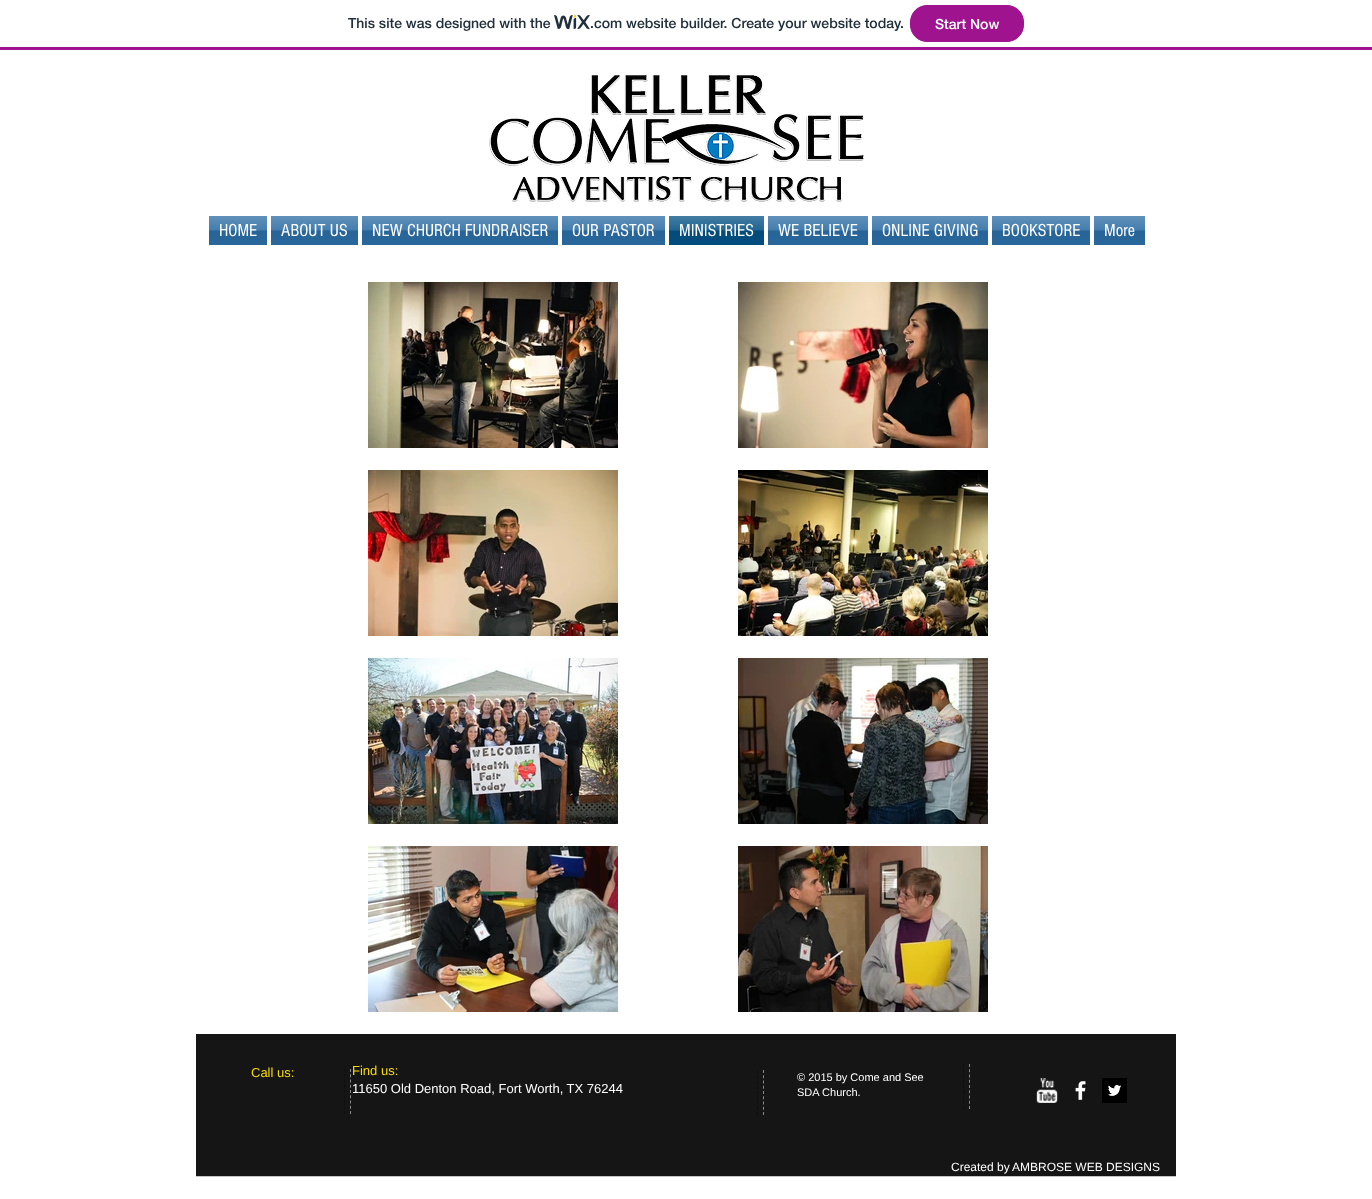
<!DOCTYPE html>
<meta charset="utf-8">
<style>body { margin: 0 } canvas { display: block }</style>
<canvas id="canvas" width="1372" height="1199"></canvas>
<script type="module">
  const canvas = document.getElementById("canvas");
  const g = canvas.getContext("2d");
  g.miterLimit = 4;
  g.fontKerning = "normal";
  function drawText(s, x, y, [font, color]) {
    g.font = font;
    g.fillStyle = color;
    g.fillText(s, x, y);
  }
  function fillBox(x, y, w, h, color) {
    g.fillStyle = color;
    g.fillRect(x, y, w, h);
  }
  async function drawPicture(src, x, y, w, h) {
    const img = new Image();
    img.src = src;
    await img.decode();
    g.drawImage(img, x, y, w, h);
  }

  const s1 = ["500 14px 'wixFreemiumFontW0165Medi'", "#20303C"];
  const s2 = ["500 14px 'wixFreemiumFontW0165Medi'", "#FFFFFF"];
  const s3 = ["18px 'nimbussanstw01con'", "#FFFFFF"];
  const s4 = ["13px Liberation Sans", "#F7DB07"];
  const s5 = ["13px Liberation Sans", "#FFFFFF"];
  const s6 = ["11px Liberation Sans", "#FFFFFF"];
  const s7 = ["12px Liberation Sans", "#FFFFFF"];

  fillBox(0, 0, 1372, 1199, "#FFFFFF");
  fillBox(0, 47, 1372, 3, "#A0138E");
  drawText("This site was designed with the", 348, 28, s1);
  await drawPicture("pic1.png", 554, 15, 36, 15);
  drawText(".com website builder. Create your website today.", 590, 28, s1);
  g.fillStyle = "#A0138E";
  g.beginPath();
  g.roundRect(910.5, 5.5, 113, 36, 16.5);
  g.fill();
  g.strokeStyle = "#A0138E";
  g.stroke();
  drawText("Start Now", 935, 29, s2);
  await drawPicture("pic2.png", 489, 75, 375, 127);
  fillBox(209, 216, 58, 29, "#2B6CA3");
  await drawPicture("pic3.png", 209, 216, 58, 29);
  drawText("HOME", 219, 236, s3);
  fillBox(271, 216, 87, 29, "#2B6CA3");
  await drawPicture("pic4.png", 271, 216, 87, 29);
  drawText("ABOUT US", 281, 236, s3);
  fillBox(362, 216, 196, 29, "#2B6CA3");
  await drawPicture("pic5.png", 362, 216, 196, 29);
  drawText("NEW CHURCH FUNDRAISER", 372, 236, s3);
  fillBox(562, 216, 103, 29, "#2B6CA3");
  await drawPicture("pic6.png", 562, 216, 103, 29);
  drawText("OUR PASTOR", 572, 236, s3);
  fillBox(669, 216, 95, 29, "#045184");
  await drawPicture("pic7.png", 669, 216, 95, 29);
  drawText("MINISTRIES", 679, 236, s3);
  fillBox(768, 216, 100, 29, "#2B6CA3");
  await drawPicture("pic8.png", 768, 216, 100, 29);
  drawText("WE BELIEVE", 778, 236, s3);
  fillBox(872, 216, 116, 29, "#2B6CA3");
  await drawPicture("pic9.png", 872, 216, 116, 29);
  drawText("ONLINE GIVING", 882, 236, s3);
  fillBox(992, 216, 98, 29, "#2B6CA3");
  await drawPicture("pic10.png", 992, 216, 98, 29);
  drawText("BOOKSTORE", 1002, 236, s3);
  fillBox(1094, 216, 51, 29, "#2B6CA3");
  await drawPicture("pic11.png", 1094, 216, 51, 29);
  drawText("More", 1104, 236, s3);
  await drawPicture("pic12.png", 368, 282, 250, 166);
  await drawPicture("pic13.png", 738, 282, 250, 166);
  await drawPicture("pic14.png", 368, 470, 250, 166);
  await drawPicture("pic15.png", 738, 470, 250, 166);
  await drawPicture("pic16.png", 368, 658, 250, 166);
  await drawPicture("pic17.png", 738, 658, 250, 166);
  await drawPicture("pic18.png", 368, 846, 250, 166);
  await drawPicture("pic19.png", 738, 846, 250, 166);
  fillBox(196, 1034, 980, 142, "#161515");
  fillBox(196, 1176, 980, 1, "#C5C5C5");
  drawText("Call us:", 251, 1077, s4);
  g.beginPath();
  g.moveTo(350.5, 1069);
  g.lineTo(350.5, 1114);
  g.strokeStyle = "#8B8A8A";
  g.setLineDash([3, 2.25]);
  g.stroke();
  g.beginPath();
  g.moveTo(344.5, 1069);
  g.lineTo(344.5, 1114);
  g.strokeStyle = "#0E0E0E";
  g.stroke();
  drawText("Find us:", 352, 1075, s4);
  drawText("11650 Old Denton Road, Fort Worth, TX 76244", 352, 1093, s5);
  g.beginPath();
  g.moveTo(763.5, 1070);
  g.lineTo(763.5, 1115);
  g.strokeStyle = "#8B8A8A";
  g.stroke();
  g.beginPath();
  g.moveTo(757.5, 1070);
  g.lineTo(757.5, 1115);
  g.strokeStyle = "#0E0E0E";
  g.stroke();
  drawText("© 2015 by Come and See", 797, 1081, s6);
  drawText("SDA Church.", 797, 1096, s6);
  g.beginPath();
  g.moveTo(969.5, 1064);
  g.lineTo(969.5, 1109);
  g.strokeStyle = "#8B8A8A";
  g.stroke();
  g.beginPath();
  g.moveTo(963.5, 1064);
  g.lineTo(963.5, 1109);
  g.strokeStyle = "#0E0E0E";
  g.stroke();
  await drawPicture("pic20.png", 1036, 1078, 22, 25);
  await drawPicture("pic21.png", 1075, 1081, 11, 19);
  await drawPicture("pic22.png", 1102, 1078, 25, 25);
  drawText("Created by", 951, 1171, s7);
  drawText("AMBROSE WEB DESIGNS", 1012, 1171, s7);
</script>
